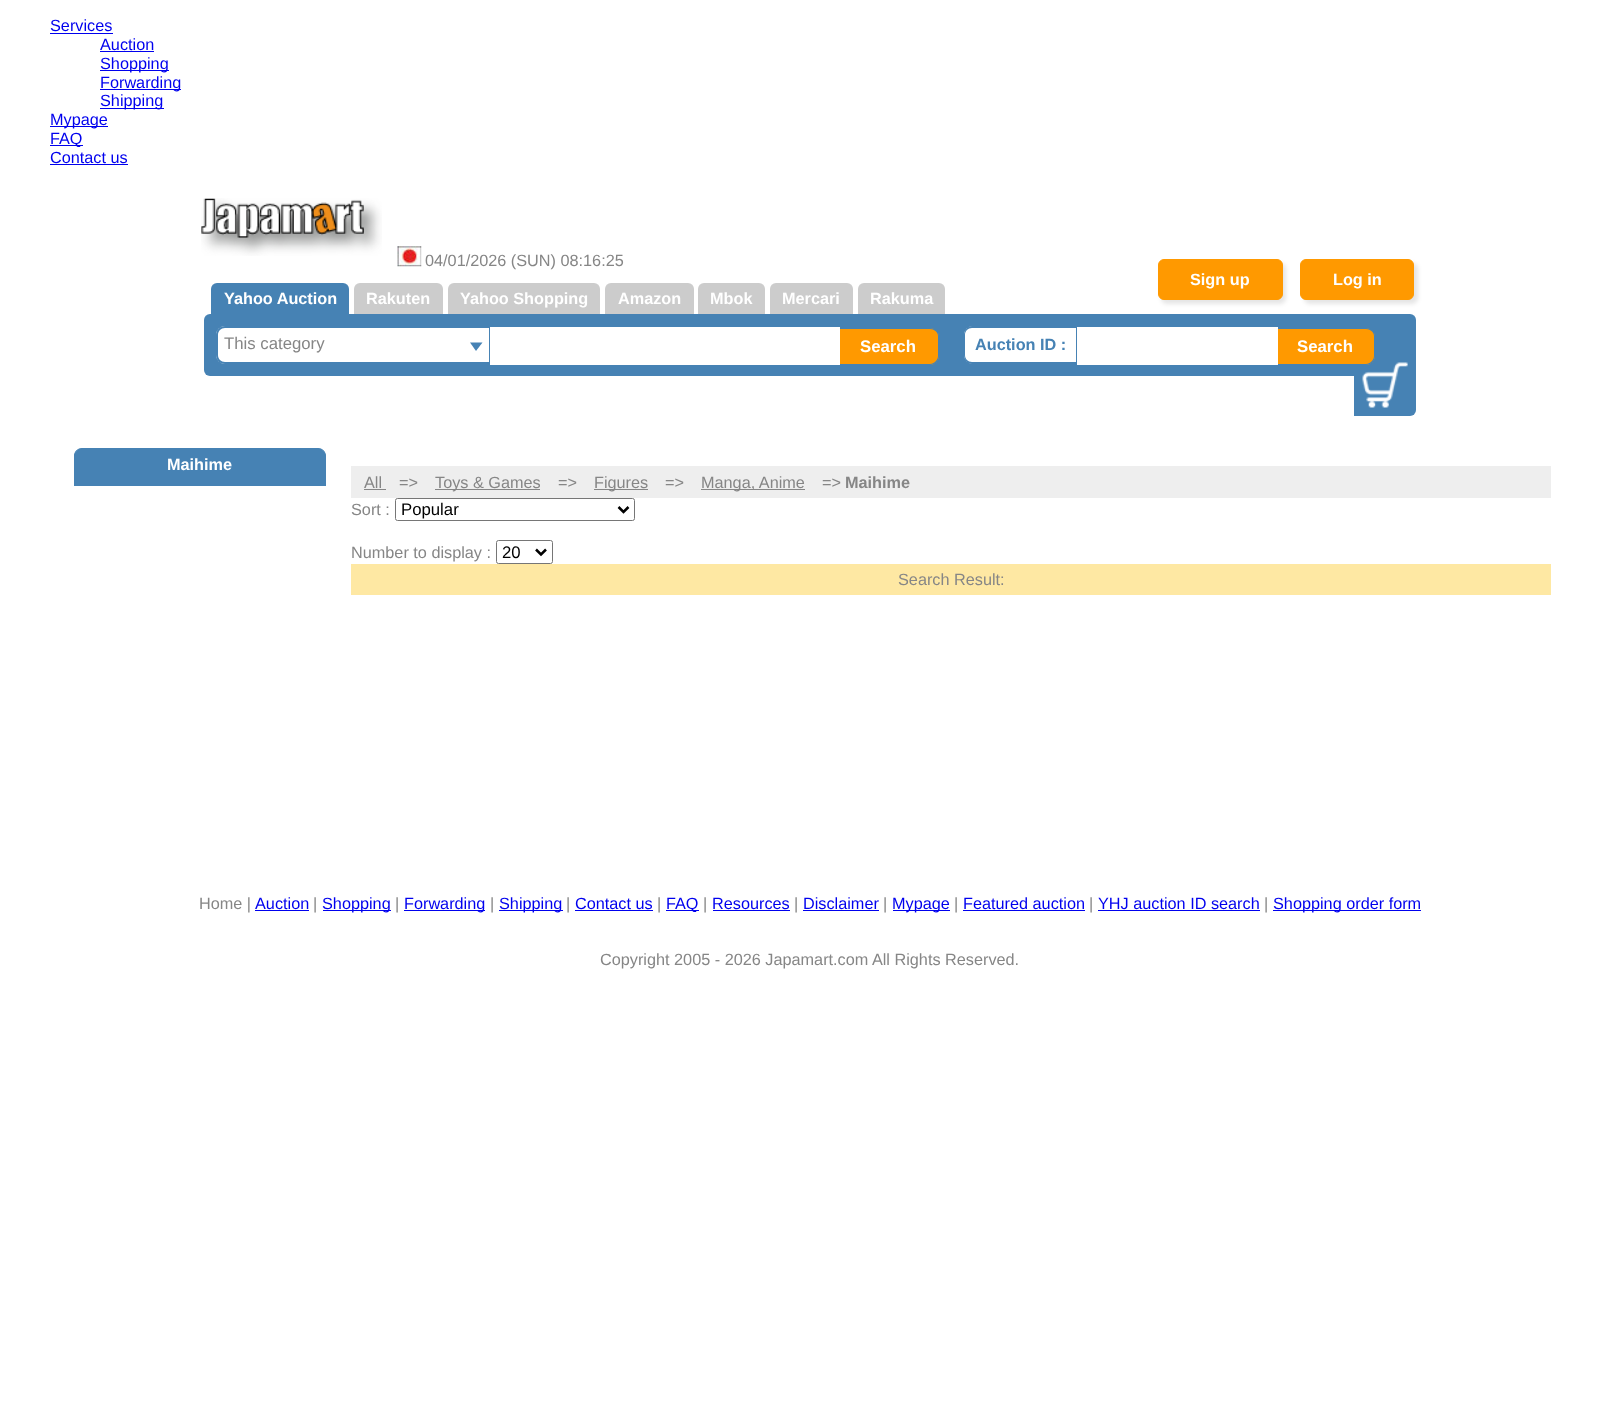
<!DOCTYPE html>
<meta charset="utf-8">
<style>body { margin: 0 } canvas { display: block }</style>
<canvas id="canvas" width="1620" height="1427"></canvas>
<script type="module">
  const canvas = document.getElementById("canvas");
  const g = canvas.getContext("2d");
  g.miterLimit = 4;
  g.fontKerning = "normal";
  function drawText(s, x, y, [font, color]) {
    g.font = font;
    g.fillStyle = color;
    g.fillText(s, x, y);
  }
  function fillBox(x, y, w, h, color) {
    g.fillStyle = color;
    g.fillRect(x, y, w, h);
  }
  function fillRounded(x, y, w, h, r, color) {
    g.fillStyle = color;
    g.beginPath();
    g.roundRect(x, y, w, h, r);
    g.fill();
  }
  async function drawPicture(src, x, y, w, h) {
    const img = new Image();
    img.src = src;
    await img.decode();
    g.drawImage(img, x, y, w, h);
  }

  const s1 = ["16.25px Liberation Sans", "#0000EE"];
  const s2 = ["16.25px Liberation Sans", "#868686"];
  const s3 = ["bold 16.25px Liberation Sans", "#FFFFFF"];
  const s4 = ["16.75px Liberation Sans", "#868686"];
  const s5 = ["bold 16.75px Liberation Sans", "#FFFFFF"];
  const s6 = ["bold 16.25px Liberation Sans", "#4682B4"];
  const s7 = ["bold 16.25px Liberation Sans", "#868686"];
  const s8 = ["16.75px Liberation Sans", "#000000"];

  fillBox(0, 0, 1620, 1427, "#FFFFFF");
  drawText("Services", 50, 31, s1);
  fillBox(50, 33, 63, 1, "#0000EE");
  drawText("Auction", 100, 50, s1);
  fillBox(100, 51, 54, 1, "#0000EE");
  fillBox(100, 70, 69, 1, "#0000EE");
  drawText("Shopping", 100, 69, s1);
  fillBox(100, 89, 81, 1, "#0000EE");
  drawText("Forwarding", 100, 88, s1);
  fillBox(100, 108, 64, 1, "#0000EE");
  drawText("Shipping", 100, 106, s1);
  fillBox(50, 126, 58, 1, "#0000EE");
  drawText("Mypage", 50, 125, s1);
  fillBox(50, 145, 33, 1, "#0000EE");
  drawText("FAQ", 50, 144, s1);
  drawText("Contact us", 50, 163, s1);
  fillBox(50, 164, 78, 1, "#0000EE");
  await drawPicture("pic1.png", 201, 198, 181, 58);
  await drawPicture("pic2.png", 397, 246, 25, 21);
  drawText("04/01/2026 (SUN) 08:16:25", 425, 266, s2);
  g.fillStyle = "rgba(0, 0, 0, 0.1)";
  g.filter = "blur(2px)";
  g.beginPath();
  g.roundRect(1161, 263, 125, 41, 6);
  g.fill();
  g.filter = "none";
  g.fillStyle = "#FF9900";
  g.beginPath();
  g.roundRect(1158.5, 259.5, 124, 40, 5.5);
  g.fill();
  g.strokeStyle = "#FF9900";
  g.stroke();
  drawText("Sign up", 1190, 285, s3);
  g.fillStyle = "rgba(0, 0, 0, 0.1)";
  g.filter = "blur(2px)";
  g.beginPath();
  g.roundRect(1304, 263, 114, 41, 6);
  g.fill();
  g.filter = "none";
  g.fillStyle = "#FF9900";
  g.beginPath();
  g.roundRect(1300.5, 259.5, 113, 40, 5.5);
  g.fill();
  g.stroke();
  drawText("Log in", 1333, 285, s3);
  g.fillStyle = "#4682B4";
  g.beginPath();
  g.roundRect(211, 283, 138, 37, [6, 6, 0, 0]);
  g.fill();
  drawText("Yahoo Auction", 224, 304, s3);
  g.fillStyle = "#CCCCCC";
  g.beginPath();
  g.roundRect(354, 283, 89, 37, [6, 6, 0, 0]);
  g.fill();
  drawText("Rakuten", 366, 304, s3);
  g.fillStyle = "#CCCCCC";
  g.beginPath();
  g.roundRect(448, 283, 152, 37, [6, 6, 0, 0]);
  g.fill();
  drawText("Yahoo Shopping", 460, 304, s3);
  g.fillStyle = "#CCCCCC";
  g.beginPath();
  g.roundRect(605, 283, 89, 37, [6, 6, 0, 0]);
  g.fill();
  drawText("Amazon", 618, 304, s3);
  g.fillStyle = "#CCCCCC";
  g.beginPath();
  g.roundRect(698, 283, 67, 37, [6, 6, 0, 0]);
  g.fill();
  drawText("Mbok", 710, 304, s3);
  g.fillStyle = "#CCCCCC";
  g.beginPath();
  g.roundRect(770, 283, 83, 37, [6, 6, 0, 0]);
  g.fill();
  drawText("Mercari", 782, 304, s3);
  g.fillStyle = "#CCCCCC";
  g.beginPath();
  g.roundRect(858, 283, 87, 37, [6, 6, 0, 0]);
  g.fill();
  drawText("Rakuma", 870, 304, s3);
  fillRounded(204, 314, 1212, 62, 6, "#4682B4");
  g.fillStyle = "#FFFFFF";
  g.beginPath();
  g.roundRect(216, 326, 273, 38, [9, 0, 0, 9]);
  g.fill();
  g.fillStyle = "#4682B4";
  g.beginPath();
  g.moveTo(225, 326);
  g.lineTo(489, 326);
  g.lineTo(489, 364);
  g.lineTo(225, 364);
  g.bezierCurveTo(220, 364, 216, 360, 216, 355);
  g.lineTo(216, 335);
  g.bezierCurveTo(216, 330, 220, 326, 225, 326);
  g.closePath();
  g.moveTo(225, 328);
  g.lineTo(489, 328);
  g.lineTo(489, 362);
  g.lineTo(225, 362);
  g.bezierCurveTo(221, 362, 218, 359, 218, 355);
  g.lineTo(218, 335);
  g.bezierCurveTo(218, 331, 221, 328, 225, 328);
  g.closePath();
  g.fill("evenodd");
  drawText("This category", 224, 349, s4);
  g.fillStyle = "#4682B4";
  g.beginPath();
  g.moveTo(470, 342.5);
  g.lineTo(482.5, 342.5);
  g.lineTo(476, 351);
  g.closePath();
  g.fill();
  g.fillStyle = "#FF9900";
  g.beginPath();
  g.roundRect(839, 328, 100, 37, [0, 9, 9, 0]);
  g.fill();
  g.fillStyle = "#4682B4";
  g.beginPath();
  g.moveTo(839, 328);
  g.lineTo(930, 328);
  g.bezierCurveTo(935, 328, 939, 331, 939, 336);
  g.lineTo(939, 356);
  g.bezierCurveTo(939, 361, 935, 365, 930, 365);
  g.lineTo(839, 365);
  g.closePath();
  g.moveTo(839, 329);
  g.lineTo(930, 329);
  g.bezierCurveTo(934, 329, 938, 332, 938, 336);
  g.lineTo(938, 356);
  g.bezierCurveTo(938, 360, 934, 364, 930, 364);
  g.lineTo(839, 364);
  g.closePath();
  g.fill("evenodd");
  fillBox(490, 327, 350, 38, "#FFFFFF");
  drawText("Search", 860, 352, s5);
  g.beginPath();
  g.roundRect(964, 326, 112, 38, [9, 0, 0, 9]);
  g.fill();
  g.fillStyle = "#4682B4";
  g.beginPath();
  g.moveTo(972, 326);
  g.lineTo(1076, 326);
  g.lineTo(1076, 364);
  g.lineTo(972, 364);
  g.bezierCurveTo(968, 364, 964, 360, 964, 355);
  g.lineTo(964, 335);
  g.bezierCurveTo(964, 330, 968, 326, 972, 326);
  g.closePath();
  g.moveTo(972, 328);
  g.lineTo(1076, 328);
  g.lineTo(1076, 362);
  g.lineTo(972, 362);
  g.bezierCurveTo(968, 362, 965, 359, 965, 355);
  g.lineTo(965, 335);
  g.bezierCurveTo(965, 331, 968, 328, 972, 328);
  g.closePath();
  g.fill("evenodd");
  drawText("Auction ID :", 975, 350, s6);
  g.beginPath();
  g.roundRect(1354, 354, 62, 62, [0, 6, 6, 0]);
  g.fill();
  await drawPicture("pic3.png", 1362, 362, 46, 46);
  g.fillStyle = "#FF9900";
  g.beginPath();
  g.roundRect(1275, 328, 100, 37, [0, 9, 9, 0]);
  g.fill();
  g.fillStyle = "#4682B4";
  g.beginPath();
  g.moveTo(1275, 328);
  g.lineTo(1366, 328);
  g.bezierCurveTo(1371, 328, 1375, 331, 1375, 336);
  g.lineTo(1375, 356);
  g.bezierCurveTo(1375, 361, 1371, 365, 1366, 365);
  g.lineTo(1275, 365);
  g.closePath();
  g.moveTo(1275, 329);
  g.lineTo(1366, 329);
  g.bezierCurveTo(1370, 329, 1374, 332, 1374, 336);
  g.lineTo(1374, 356);
  g.bezierCurveTo(1374, 360, 1370, 364, 1366, 364);
  g.lineTo(1275, 364);
  g.closePath();
  g.fill("evenodd");
  fillBox(1077, 327, 201, 38, "#FFFFFF");
  drawText("Search", 1297, 352, s5);
  g.fillStyle = "#4682B4";
  g.beginPath();
  g.roundRect(74, 448, 252, 38, [9, 9, 0, 0]);
  g.fill();
  g.beginPath();
  g.moveTo(82, 448);
  g.lineTo(318, 448);
  g.bezierCurveTo(322, 448, 326, 451, 326, 456);
  g.lineTo(326, 486);
  g.lineTo(74, 486);
  g.lineTo(74, 456);
  g.bezierCurveTo(74, 451, 78, 448, 82, 448);
  g.closePath();
  g.moveTo(82, 449);
  g.lineTo(318, 449);
  g.bezierCurveTo(322, 449, 325, 452, 325, 456);
  g.lineTo(325, 486);
  g.lineTo(75, 486);
  g.lineTo(75, 456);
  g.bezierCurveTo(75, 452, 78, 449, 82, 449);
  g.closePath();
  g.fill("evenodd");
  drawText("Maihime", 167, 470, s3);
  fillBox(351, 466, 1200, 32, "#EEEEEE");
  drawText("All", 364, 488, s2);
  fillBox(364, 489, 22, 1, "#868686");
  drawText("=>", 399, 488, s2);
  fillBox(435, 489, 105, 1, "#868686");
  drawText("Toys & Games", 435, 488, s2);
  drawText("=>", 558, 488, s2);
  fillBox(594, 489, 54, 1, "#868686");
  drawText("Figures", 594, 488, s2);
  drawText("=>", 665, 488, s2);
  fillBox(701, 489, 104, 1, "#868686");
  drawText("Manga, Anime", 701, 488, s2);
  drawText("=>", 822, 488, s2);
  drawText("Maihime", 845, 488, s7);
  drawText("Sort :", 351, 515, s2);
  g.beginPath();
  g.roundRect(395.5, 498.5, 239, 22, 2);
  g.strokeStyle = "#767676";
  g.stroke();
  g.beginPath();
  g.moveTo(618.5, 507);
  g.lineTo(623.5, 512);
  g.lineTo(628.5, 507);
  g.strokeStyle = "#000000";
  g.lineWidth = 2.5;
  g.stroke();
  drawText("Popular", 401, 515, s8);
  drawText("Number to display :", 351, 558, s2);
  g.beginPath();
  g.roundRect(496.5, 540.5, 56, 23, 2);
  g.strokeStyle = "#767676";
  g.lineWidth = 1;
  g.stroke();
  g.beginPath();
  g.moveTo(536, 549.5);
  g.lineTo(541, 554.5);
  g.lineTo(546, 549.5);
  g.strokeStyle = "#000000";
  g.lineWidth = 2.5;
  g.stroke();
  drawText("20", 502, 558, s8);
  fillBox(351, 564, 1200, 31, "#FEE8A3");
  drawText("Search Result:", 898, 585, s2);
  drawText("Home |", 199, 909, s2);
  drawText("Auction", 255, 909, s1);
  fillBox(255, 910, 54, 1, "#0000EE");
  drawText("|", 313, 909, s2);
  fillBox(323, 910, 68, 1, "#0000EE");
  drawText("Shopping", 322, 909, s1);
  drawText("|", 395, 909, s2);
  fillBox(404, 910, 81, 1, "#0000EE");
  drawText("Forwarding", 404, 909, s1);
  drawText("|", 490, 909, s2);
  fillBox(499, 910, 64, 1, "#0000EE");
  drawText("Shipping", 499, 909, s1);
  drawText("|", 566, 909, s2);
  drawText("Contact us", 575, 909, s1);
  fillBox(575, 910, 78, 1, "#0000EE");
  drawText("|", 657, 909, s2);
  fillBox(666, 910, 33, 1, "#0000EE");
  drawText("FAQ", 666, 909, s1);
  drawText("|", 703, 909, s2);
  drawText("Resources", 712, 909, s1);
  fillBox(713, 910, 77, 1, "#0000EE");
  drawText("|", 794, 909, s2);
  drawText("Disclaimer", 803, 909, s1);
  fillBox(803, 910, 76, 1, "#0000EE");
  drawText("|", 883, 909, s2);
  fillBox(893, 910, 57, 1, "#0000EE");
  drawText("Mypage", 892, 909, s1);
  drawText("|", 954, 909, s2);
  drawText("Featured auction", 963, 909, s1);
  fillBox(963, 910, 122, 1, "#0000EE");
  drawText("|", 1089, 909, s2);
  drawText("YHJ auction ID search", 1098, 909, s1);
  fillBox(1098, 910, 162, 1, "#0000EE");
  drawText("|", 1264, 909, s2);
  fillBox(1273, 910, 148, 1, "#0000EE");
  drawText("Shopping order form", 1273, 909, s1);
  drawText("Copyright 2005 - 2026 Japamart.com All Rights Reserved.", 600, 965, s2);
</script>
